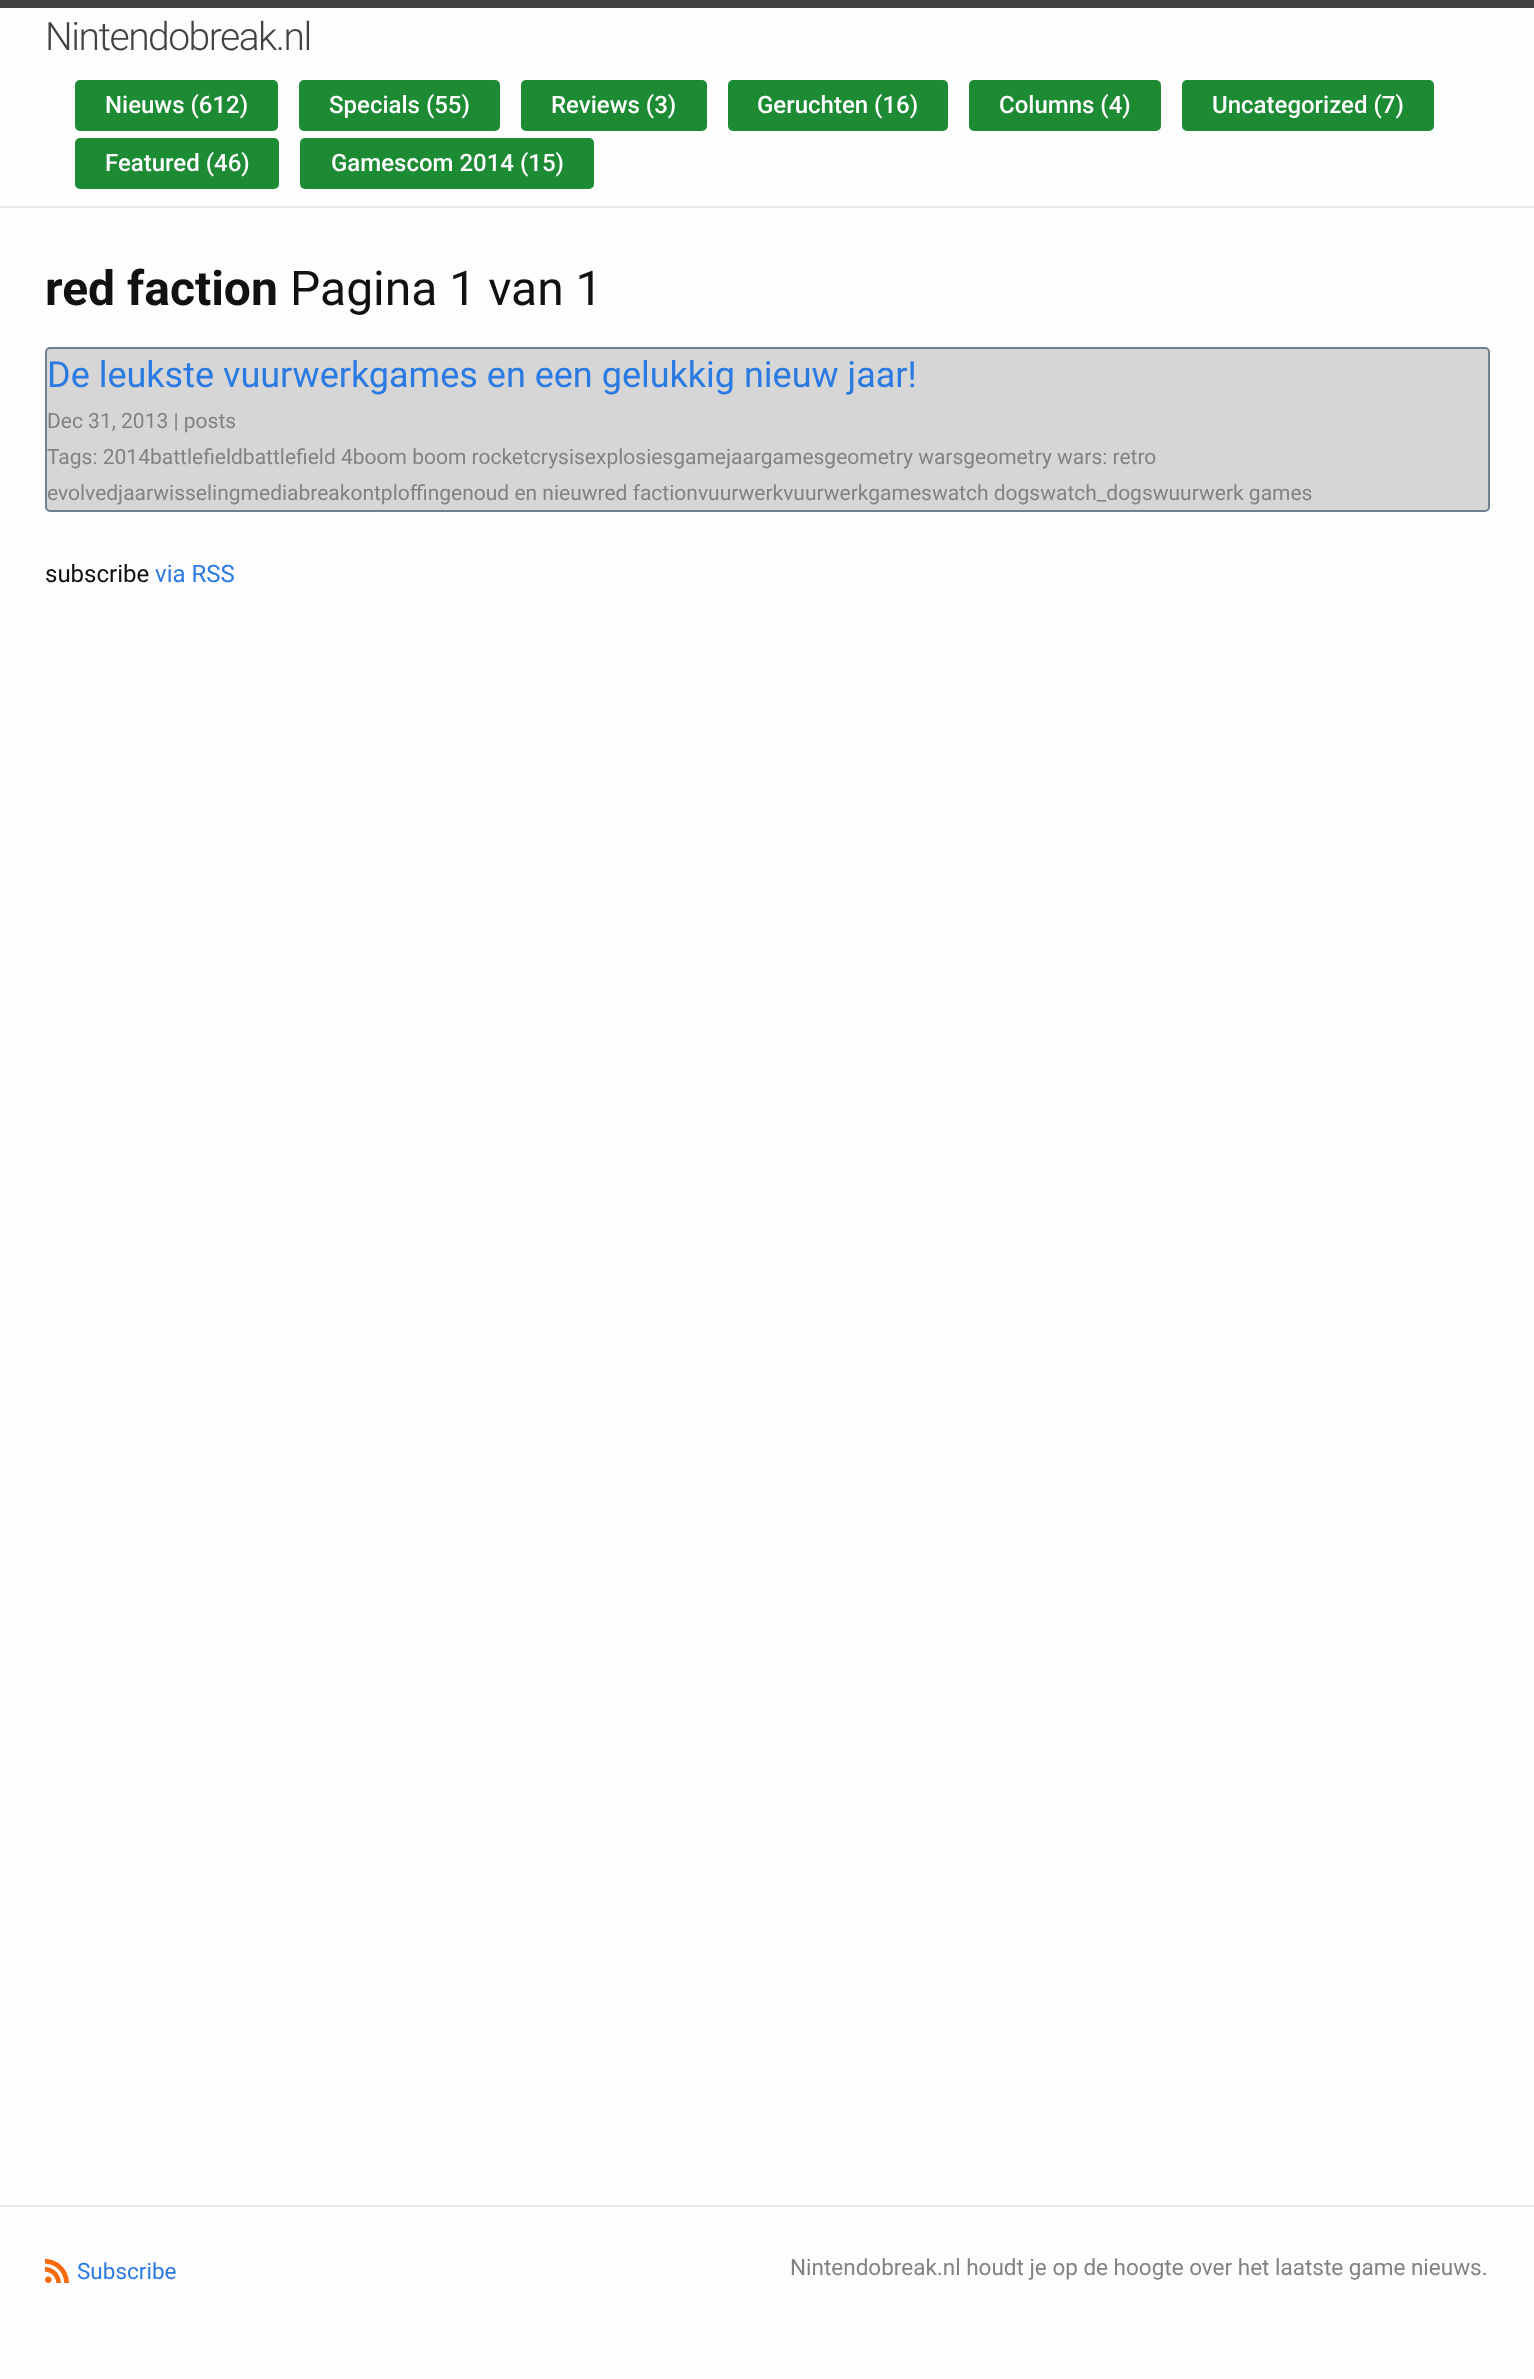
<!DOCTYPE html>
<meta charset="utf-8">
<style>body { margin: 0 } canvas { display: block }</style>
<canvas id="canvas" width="1534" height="2379"></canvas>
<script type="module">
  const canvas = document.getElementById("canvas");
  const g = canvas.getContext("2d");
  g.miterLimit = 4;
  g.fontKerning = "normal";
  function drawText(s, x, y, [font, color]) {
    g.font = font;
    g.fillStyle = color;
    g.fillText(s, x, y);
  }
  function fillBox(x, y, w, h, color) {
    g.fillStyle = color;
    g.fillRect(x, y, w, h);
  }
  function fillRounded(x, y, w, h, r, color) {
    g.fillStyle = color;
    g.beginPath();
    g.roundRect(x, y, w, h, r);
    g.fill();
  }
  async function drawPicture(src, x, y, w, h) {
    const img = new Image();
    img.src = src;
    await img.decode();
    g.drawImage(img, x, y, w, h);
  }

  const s1 = ["300 39px Roboto", "#424242"];
  const s2 = ["500 24px Roboto", "#FFFFFF"];
  const s3 = ["bold 48px Roboto", "#111111"];
  const s4 = ["48px Roboto", "#111111"];
  const s5 = ["36px Roboto", "#2A7AE2"];
  const s6 = ["21px Roboto", "#828282"];
  const s7 = ["24px Roboto", "#111111"];
  const s8 = ["24px Roboto", "#2A7AE2"];
  const s9 = ["22.5px Roboto", "#2A7AE2"];
  const s10 = ["22.5px Roboto", "#828282"];

  fillBox(0, 0, 1534, 2379, "#FDFDFD");
  fillBox(0, 0, 1534, 8, "#424242");
  fillBox(0, 206, 1534, 2, "#E8E8E8");
  g.letterSpacing = "-1.5px";
  drawText("Nintendobreak.nl", 45, 50, s1);
  fillRounded(75, 80, 203, 51, 5, "#1D8A34");
  g.letterSpacing = "0px";
  drawText("Nieuws (612)", 105, 113, s2);
  fillRounded(299, 80, 201, 51, 5, "#1D8A34");
  drawText("Specials (55)", 329, 113, s2);
  fillRounded(521, 80, 186, 51, 5, "#1D8A34");
  drawText("Reviews (3)", 551, 113, s2);
  fillRounded(728, 80, 220, 51, 5, "#1D8A34");
  drawText("Geruchten (16)", 757, 113, s2);
  fillRounded(969, 80, 192, 51, 5, "#1D8A34");
  drawText("Columns (4)", 999, 113, s2);
  fillRounded(1182, 80, 252, 51, 5, "#1D8A34");
  drawText("Uncategorized (7)", 1212, 113, s2);
  fillRounded(75, 138, 204, 51, 5, "#1D8A34");
  drawText("Featured (46)", 105, 171, s2);
  fillRounded(300, 138, 294, 51, 5, "#1D8A34");
  drawText("Gamescom 2014 (15)", 331, 171, s2);
  drawText("red faction", 45, 305, s3);
  drawText("Pagina 1 van 1", 290, 305, s4);
  g.fillStyle = "#D6D6D6";
  g.beginPath();
  g.roundRect(46, 348, 1443, 163, 4);
  g.fill();
  g.strokeStyle = "#708090";
  g.lineWidth = 2;
  g.stroke();
  drawText("De leukste vuurwerkgames en een gelukkig nieuw jaar!", 47, 387, s5);
  drawText("Dec 31, 2013 | posts", 47, 428, s6);
  drawText("Tags: 2014battlefieldbattlefield 4boom boom rocketcrysisexplosiesgamejaargamesgeometry warsgeometry wars: retro", 47, 464, s6);
  drawText("evolvedjaarwisselingmediabreakontploffingenoud en nieuwred factionvuurwerkvuurwerkgameswatch dogswatch_dogswuurwerk games", 47, 500, s6);
  drawText("subscribe", 45, 582, s7);
  drawText("via RSS", 155, 582, s8);
  fillBox(0, 2205, 1534, 2, "#E8E8E8");
  await drawPicture("pic1.png", 45, 2259, 24, 24);
  drawText("Subscribe", 77, 2279, s9);
  drawText("Nintendobreak.nl houdt je op de hoogte over het laatste game nieuws.", 790, 2275, s10);
</script>
